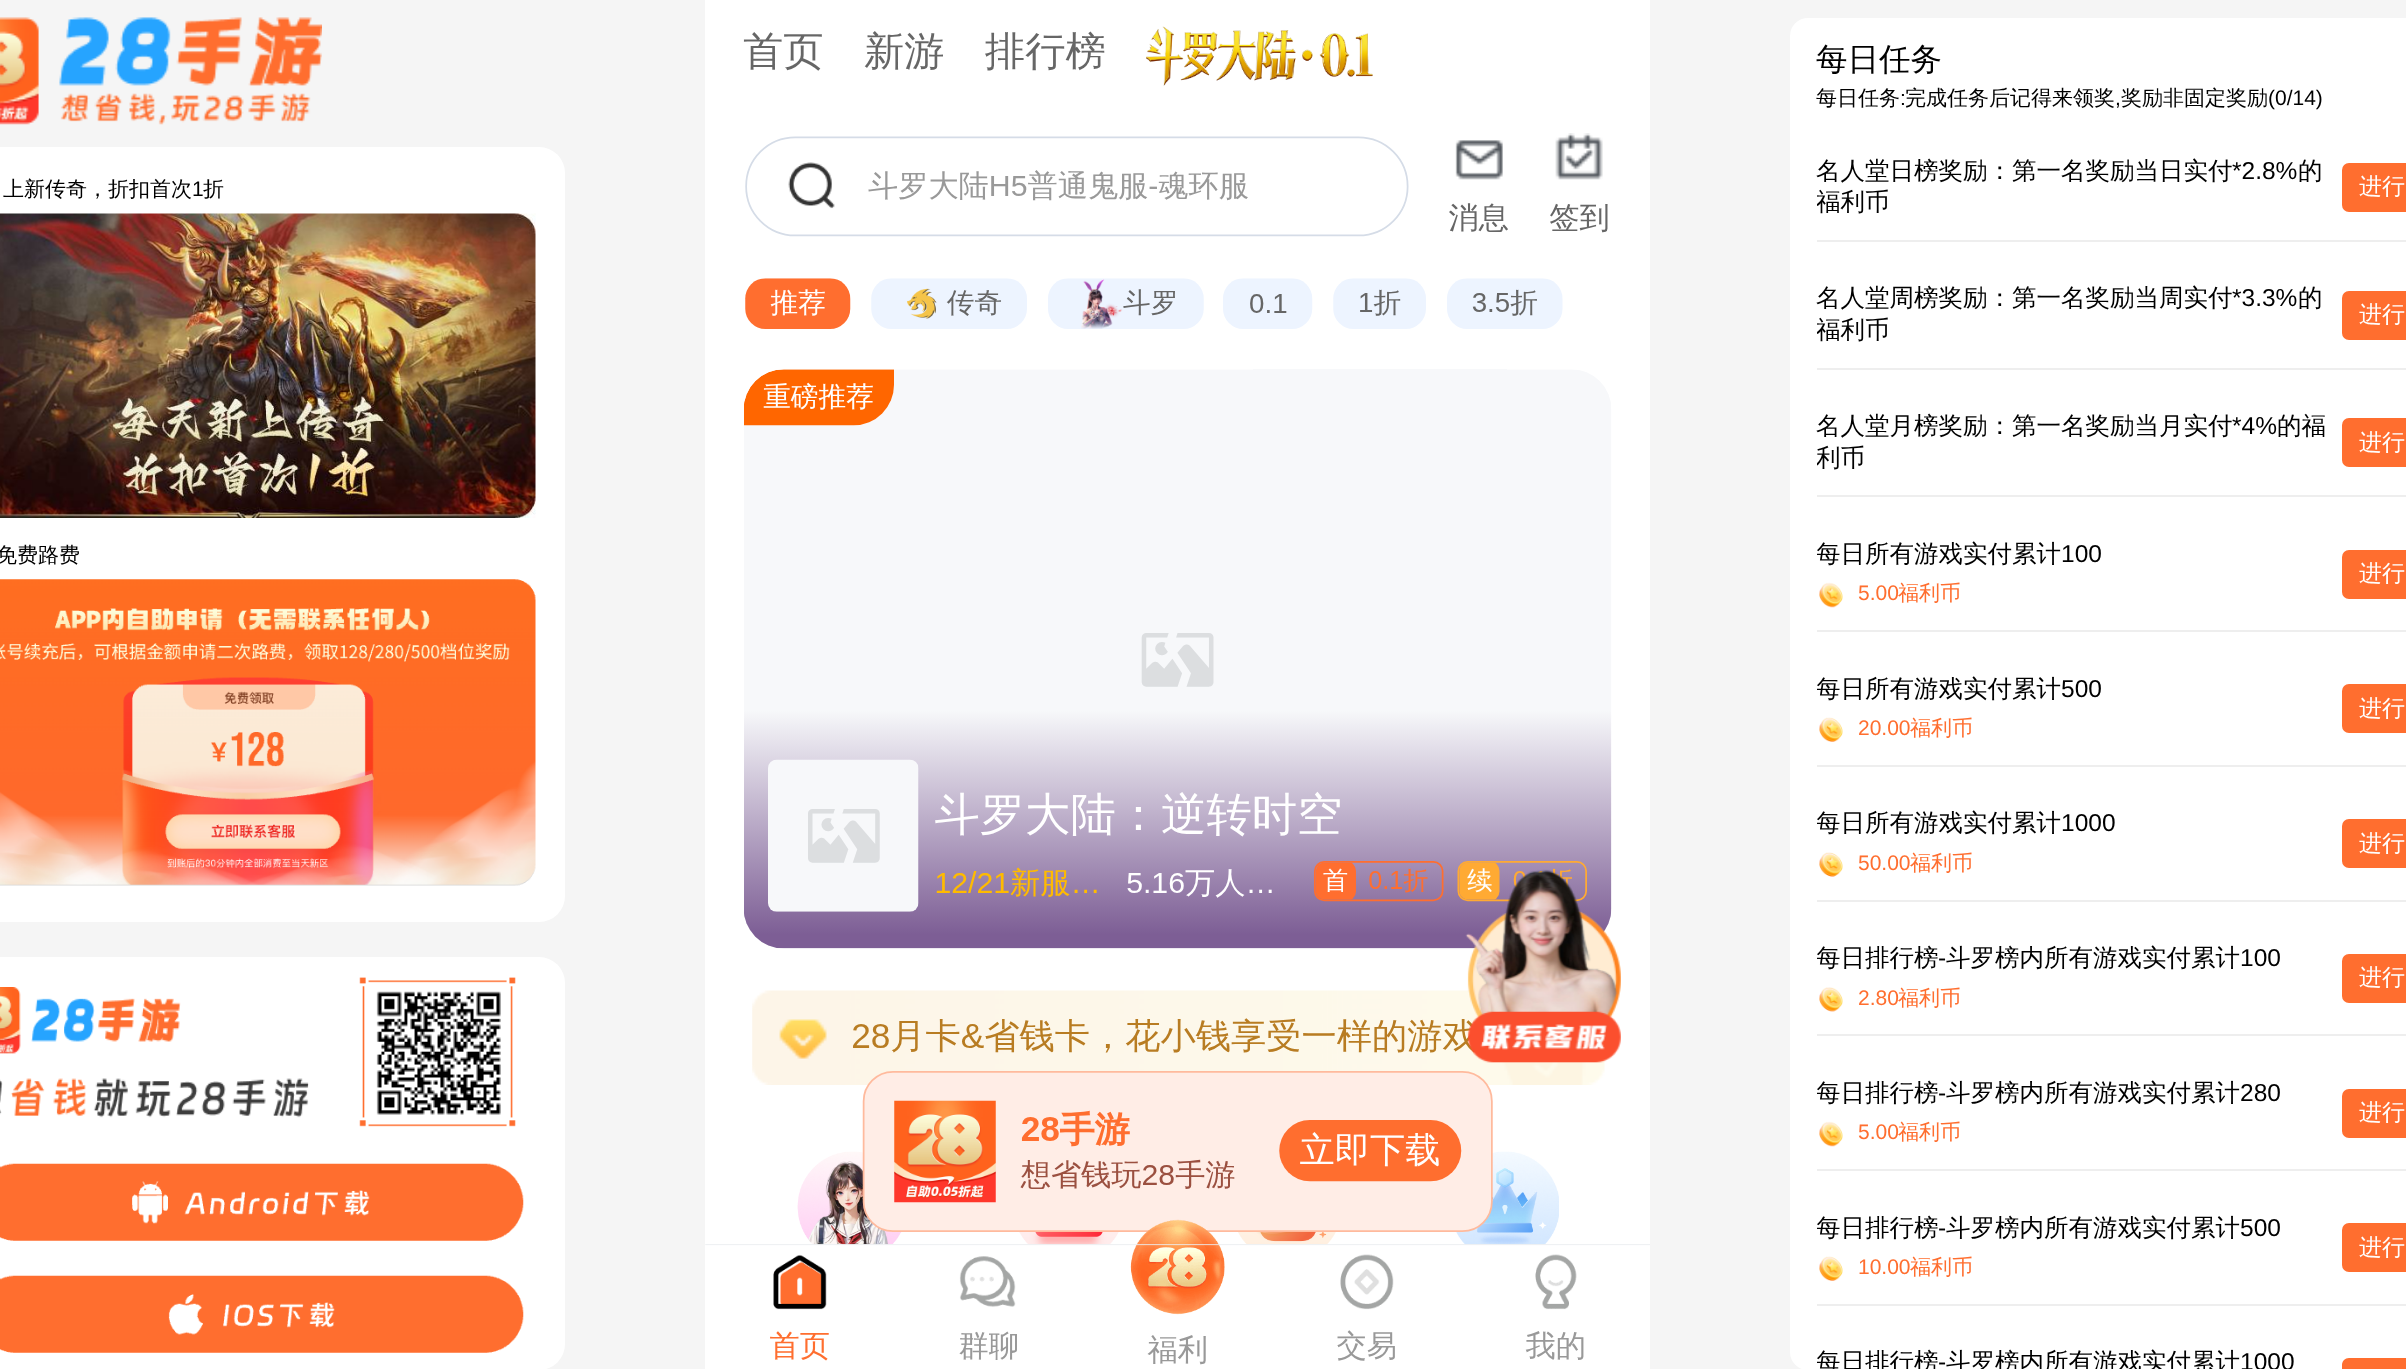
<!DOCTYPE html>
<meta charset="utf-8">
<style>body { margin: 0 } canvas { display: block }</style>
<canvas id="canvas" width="2406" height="1369"></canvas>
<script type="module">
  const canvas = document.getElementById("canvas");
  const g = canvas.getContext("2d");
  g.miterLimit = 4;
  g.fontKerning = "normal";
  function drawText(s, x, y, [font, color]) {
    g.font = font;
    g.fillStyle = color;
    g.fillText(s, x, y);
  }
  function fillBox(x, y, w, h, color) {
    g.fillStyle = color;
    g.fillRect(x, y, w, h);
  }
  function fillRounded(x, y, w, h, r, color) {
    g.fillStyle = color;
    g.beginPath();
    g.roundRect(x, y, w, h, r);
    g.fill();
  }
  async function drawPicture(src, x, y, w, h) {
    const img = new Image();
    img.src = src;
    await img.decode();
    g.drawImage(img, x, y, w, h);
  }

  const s1 = ["500 21px WenQuanYi Zen Hei", "#000000"];
  const s2 = ["21px Liberation Sans", "#000000"];
  const s3 = ["500 31.5px WenQuanYi Zen Hei", "#000000"];
  const s4 = ["500 24.5px WenQuanYi Zen Hei", "#000000"];
  const s5 = ["24.5px Liberation Sans", "#000000"];
  const s6 = ["500 23px WenQuanYi Zen Hei", "#FFFFFF"];
  const s7 = ["21px Liberation Sans", "#FF6E2F"];
  const s8 = ["500 21px WenQuanYi Zen Hei", "#FF6E2F"];

  fillBox(0, 0, 2406, 1369, "#F5F5F5");
  await drawPicture("pic1.png", 0, 17, 322, 108);
  fillRounded(-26, 147, 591, 775, 26, "#FFFFFF");
  drawText("上新传奇，折扣首次", 3, 196, s1);
  drawText("1", 192, 196, s2);
  drawText("折", 203, 196, s1);
  await drawPicture("pic2.png", 0, 213, 536, 305);
  drawText("免费路费", -4, 562, s1);
  await drawPicture("pic3.png", 0, 579, 536, 307);
  fillRounded(-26, 957, 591, 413, 26, "#FFFFFF");
  await drawPicture("pic4.png", 0, 987, 309, 131);
  await drawPicture("pic5.png", 359, 977, 157, 150);
  await drawPicture("pic6.png", 0, 1163, 524, 78);
  await drawPicture("pic7.png", 0, 1275, 524, 78);
  fillBox(705, 0, 945, 1369, "#FFFFFF");
  await drawPicture("pic8.png", 705, 26, 945, 1339);
  fillRounded(1790, 18, 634, 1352, 18, "#FFFFFF");
  drawText("每日任务", 1816, 70, s3);
  drawText("每日任务", 1816, 105, s1);
  drawText(":", 1900, 105, s2);
  drawText("完成任务后记得来领奖", 1905, 105, s1);
  drawText(",", 2115, 105, s2);
  drawText("奖励非固定奖励", 2121, 105, s1);
  drawText("(0/14)", 2268, 105, s2);
  fillBox(1817, 240, 589, 2, "#EEEEEE");
  drawText("名人堂日榜奖励：第一名奖励当日实付", 1816, 179, s4);
  drawText("*2.8%", 2232, 179, s5);
  drawText("的", 2298, 179, s4);
  g.save();
  g.beginPath();
  g.rect(1817, 156, 525, 63);
  g.clip();
  drawText("福利币", 1816, 210, s4);
  g.restore();
  fillRounded(2342, 163, 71, 49, 7, "#FF6E2F");
  drawText("进行", 2359, 194, s6);
  fillBox(1817, 368, 589, 2, "#EEEEEE");
  drawText("名人堂周榜奖励：第一名奖励当周实付", 1816, 306, s4);
  drawText("*3.3%", 2232, 306, s5);
  drawText("的", 2298, 306, s4);
  g.save();
  g.beginPath();
  g.rect(1817, 284, 525, 63);
  g.clip();
  drawText("福利币", 1816, 338, s4);
  g.restore();
  fillRounded(2342, 291, 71, 49, 7, "#FF6E2F");
  drawText("进行", 2359, 322, s6);
  fillBox(1817, 495, 589, 2, "#EEEEEE");
  drawText("名人堂月榜奖励：第一名奖励当月实付", 1816, 434, s4);
  drawText("*4%", 2232, 434, s5);
  drawText("的福", 2277, 434, s4);
  g.save();
  g.beginPath();
  g.rect(1817, 411, 525, 63);
  g.clip();
  drawText("利币", 1816, 466, s4);
  g.restore();
  fillRounded(2342, 418, 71, 49, 7, "#FF6E2F");
  drawText("进行", 2359, 450, s6);
  fillBox(1817, 630, 589, 2, "#EEEEEE");
  g.save();
  g.beginPath();
  g.rect(1817, 539, 525, 70);
  g.clip();
  drawText("每日所有游戏实付累计", 1816, 562, s4);
  g.restore();
  drawText("100", 2061, 562, s5);
  await drawPicture("pic9.png", 1819, 582, 24, 26);
  drawText("5.00", 1858, 600, s7);
  drawText("福利币", 1898, 600, s8);
  fillRounded(2342, 550, 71, 49, 7, "#FF6E2F");
  drawText("进行", 2359, 581, s6);
  fillBox(1817, 765, 589, 2, "#EEEEEE");
  g.save();
  g.beginPath();
  g.rect(1817, 674, 525, 70);
  g.clip();
  drawText("每日所有游戏实付累计", 1816, 697, s4);
  g.restore();
  drawText("500", 2061, 697, s5);
  await drawPicture("pic10.png", 1819, 717, 24, 25);
  drawText("20.00", 1858, 735, s7);
  drawText("福利币", 1910, 735, s8);
  fillRounded(2342, 684, 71, 49, 7, "#FF6E2F");
  drawText("进行", 2359, 716, s6);
  fillBox(1817, 900, 589, 2, "#EEEEEE");
  g.save();
  g.beginPath();
  g.rect(1817, 809, 525, 70);
  g.clip();
  drawText("每日所有游戏实付累计", 1816, 831, s4);
  g.restore();
  drawText("1000", 2061, 831, s5);
  await drawPicture("pic11.png", 1819, 852, 24, 25);
  drawText("50.00", 1858, 870, s7);
  drawText("福利币", 1910, 870, s8);
  fillRounded(2342, 819, 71, 49, 7, "#FF6E2F");
  drawText("进行", 2359, 851, s6);
  fillBox(1817, 1034, 589, 2, "#EEEEEE");
  g.save();
  g.beginPath();
  g.rect(1817, 943, 525, 70);
  g.clip();
  drawText("每日排行榜", 1816, 966, s4);
  g.restore();
  drawText("-", 1938, 966, s5);
  drawText("斗罗榜内所有游戏实付累计", 1946, 966, s4);
  drawText("100", 2240, 966, s5);
  await drawPicture("pic12.png", 1819, 987, 24, 25);
  drawText("2.80", 1858, 1005, s7);
  drawText("福利币", 1898, 1005, s8);
  fillRounded(2342, 954, 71, 49, 7, "#FF6E2F");
  drawText("进行", 2359, 985, s6);
  fillBox(1817, 1169, 589, 2, "#EEEEEE");
  g.save();
  g.beginPath();
  g.rect(1817, 1078, 525, 70);
  g.clip();
  drawText("每日排行榜", 1816, 1101, s4);
  g.restore();
  drawText("-", 1938, 1101, s5);
  drawText("斗罗榜内所有游戏实付累计", 1946, 1101, s4);
  drawText("280", 2240, 1101, s5);
  await drawPicture("pic9.png", 1819, 1121, 24, 26);
  drawText("5.00", 1858, 1139, s7);
  drawText("福利币", 1898, 1139, s8);
  fillRounded(2342, 1089, 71, 49, 7, "#FF6E2F");
  drawText("进行", 2359, 1120, s6);
  fillBox(1817, 1304, 589, 2, "#EEEEEE");
  g.save();
  g.beginPath();
  g.rect(1817, 1213, 525, 70);
  g.clip();
  drawText("每日排行榜", 1816, 1236, s4);
  g.restore();
  drawText("-", 1938, 1236, s5);
  drawText("斗罗榜内所有游戏实付累计", 1946, 1236, s4);
  drawText("500", 2240, 1236, s5);
  await drawPicture("pic10.png", 1819, 1256, 24, 25);
  drawText("10.00", 1858, 1274, s7);
  drawText("福利币", 1910, 1274, s8);
  fillRounded(2342, 1223, 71, 49, 7, "#FF6E2F");
  drawText("进行", 2359, 1255, s6);
  g.save();
  g.beginPath();
  g.rect(1817, 1348, 525, 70);
  g.clip();
  drawText("每日排行榜", 1816, 1370, s4);
  g.restore();
  drawText("-", 1938, 1370, s5);
  drawText("斗罗榜内所有游戏实付累计", 1946, 1370, s4);
  drawText("1000", 2240, 1370, s5);
  g.fillStyle = "#FF6E2F";
  g.beginPath();
  g.moveTo(2349, 1358);
  g.lineTo(2406, 1358);
  g.bezierCurveTo(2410, 1358, 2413, 1361, 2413, 1365);
  g.lineTo(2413, 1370);
  g.lineTo(2342, 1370);
  g.lineTo(2342, 1365);
  g.bezierCurveTo(2342, 1361, 2345, 1358, 2349, 1358);
  g.closePath();
  g.fill();
</script>
